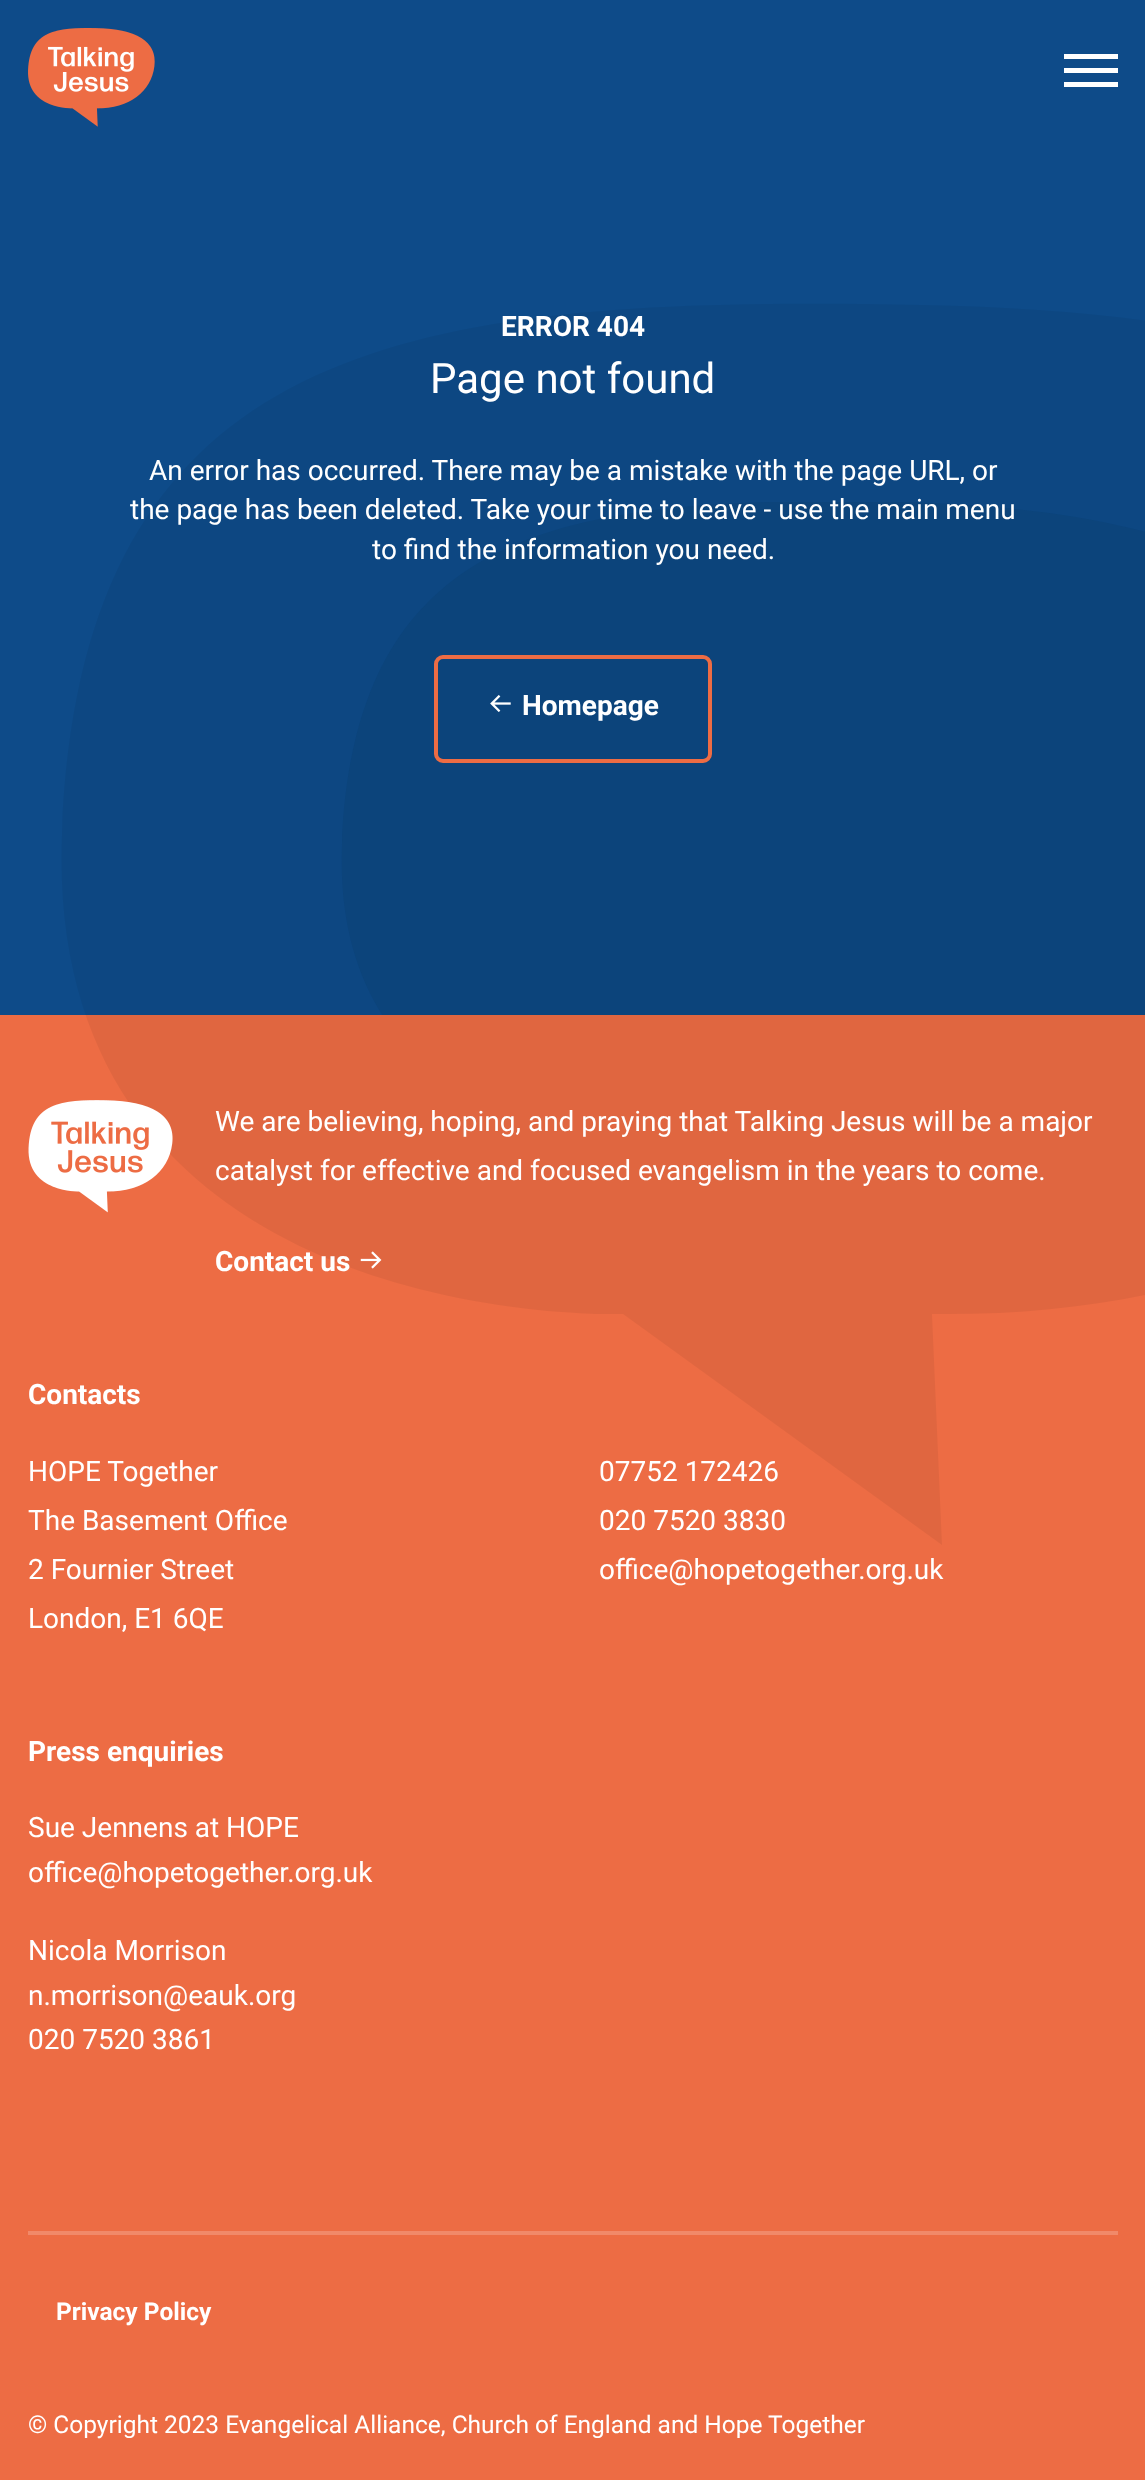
<!DOCTYPE html>
<meta charset="utf-8">
<style>body { margin: 0 } canvas { display: block }</style>
<canvas id="canvas" width="1145" height="2480"></canvas>
<script type="module">
  const canvas = document.getElementById("canvas");
  const g = canvas.getContext("2d");
  g.miterLimit = 4;
  g.fontKerning = "normal";
  function drawText(s, x, y, [font, color]) {
    g.font = font;
    g.fillStyle = color;
    g.fillText(s, x, y);
  }
  function fillBox(x, y, w, h, color) {
    g.fillStyle = color;
    g.fillRect(x, y, w, h);
  }
  async function drawPicture(src, x, y, w, h) {
    const img = new Image();
    img.src = src;
    await img.decode();
    g.drawImage(img, x, y, w, h);
  }

  const s1 = ["bold 28px Roboto", "#FFFFFF"];
  const s2 = ["42px Roboto", "#FFFFFF"];
  const s3 = ["28px Roboto", "#FFFFFF"];
  const s4 = ["bold 24.5px Roboto", "#FFFFFF"];
  const s5 = ["24.5px Roboto", "#FFFFFF"];

  fillBox(0, 0, 1145, 2480, "#ED6C44");
  fillBox(0, 0, 1145, 1015, "#0E4B89");
  await drawPicture("pic1.png", 28, 28, 127, 99);
  fillBox(1064, 54, 54, 5, "#FFFFFF");
  fillBox(1064, 68, 54, 5, "#FFFFFF");
  fillBox(1064, 82, 54, 5, "#FFFFFF");
  g.save();
  g.beginPath();
  g.rect(340, 502, 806, 513);
  g.clip();
  g.fillStyle = "#0D4882";
  g.beginPath();
  g.moveTo(342, 845);
  g.bezierCurveTo(355, 521, 574, 496, 900, 502);
  g.bezierCurveTo(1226, 509, 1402, 608, 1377, 814);
  g.bezierCurveTo(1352, 1020, 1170, 1161, 907, 1157);
  g.lineTo(913, 1307);
  g.lineTo(706, 1157);
  g.bezierCurveTo(706, 1157, 329, 1170, 342, 845);
  g.closePath();
  g.fill("evenodd");
  g.restore();
  g.fillStyle = "rgba(0, 0, 0, 0.05)";
  g.beginPath();
  g.moveTo(62, 834);
  g.bezierCurveTo(81, 333, 420, 295, 923, 305);
  g.bezierCurveTo(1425, 314, 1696, 468, 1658, 785);
  g.bezierCurveTo(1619, 1103, 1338, 1320, 932, 1314);
  g.lineTo(942, 1545);
  g.lineTo(623, 1314);
  g.bezierCurveTo(623, 1314, 42, 1334, 62, 834);
  g.closePath();
  g.fill("evenodd");
  drawText("ERROR 404", 501, 336, s1);
  drawText("Page not found", 430, 393, s2);
  drawText("An error has occurred. There may be a mistake with the page URL, or", 149, 480, s3);
  drawText("the page has been deleted. Take your time to leave - use the main menu", 130, 519, s3);
  drawText("to find the information you need.", 372, 559, s3);
  g.beginPath();
  g.roundRect(436, 657, 274, 104, 7);
  g.strokeStyle = "#ED6C44";
  g.lineWidth = 4;
  g.stroke();
  await drawPicture("pic2.png", 490, 695, 21, 17);
  drawText("Homepage", 522, 715, s1);
  await drawPicture("pic3.png", 28, 1100, 145, 113);
  drawText("We are believing, hoping, and praying that Talking Jesus will be a major", 215, 1131, s3);
  drawText("catalyst for effective and focused evangelism in the years to come.", 215, 1180, s3);
  drawText("Contact us", 215, 1271, s1);
  await drawPicture("pic4.png", 360, 1251, 22, 18);
  drawText("Contacts", 28, 1404, s1);
  drawText("HOPE Together", 28, 1481, s3);
  drawText("The Basement Office", 28, 1530, s3);
  drawText("2 Fournier Street", 28, 1579, s3);
  drawText("London, E1 6QE", 28, 1628, s3);
  drawText("07752 172426", 599, 1481, s3);
  drawText("020 7520 3830", 599, 1530, s3);
  drawText("office@hopetogether.org.uk", 599, 1579, s3);
  drawText("Press enquiries", 28, 1761, s1);
  drawText("Sue Jennens at HOPE", 28, 1837, s3);
  drawText("office@hopetogether.org.uk", 28, 1882, s3);
  drawText("Nicola Morrison", 28, 1960, s3);
  drawText("n.morrison@eauk.org", 28, 2005, s3);
  drawText("020 7520 3861", 28, 2049, s3);
  fillBox(28, 2231, 1090, 4, "#F18969");
  drawText("Privacy Policy", 56, 2320, s4);
  drawText("© Copyright 2023 Evangelical Alliance, Church of England and Hope Together", 28, 2433, s5);
</script>
